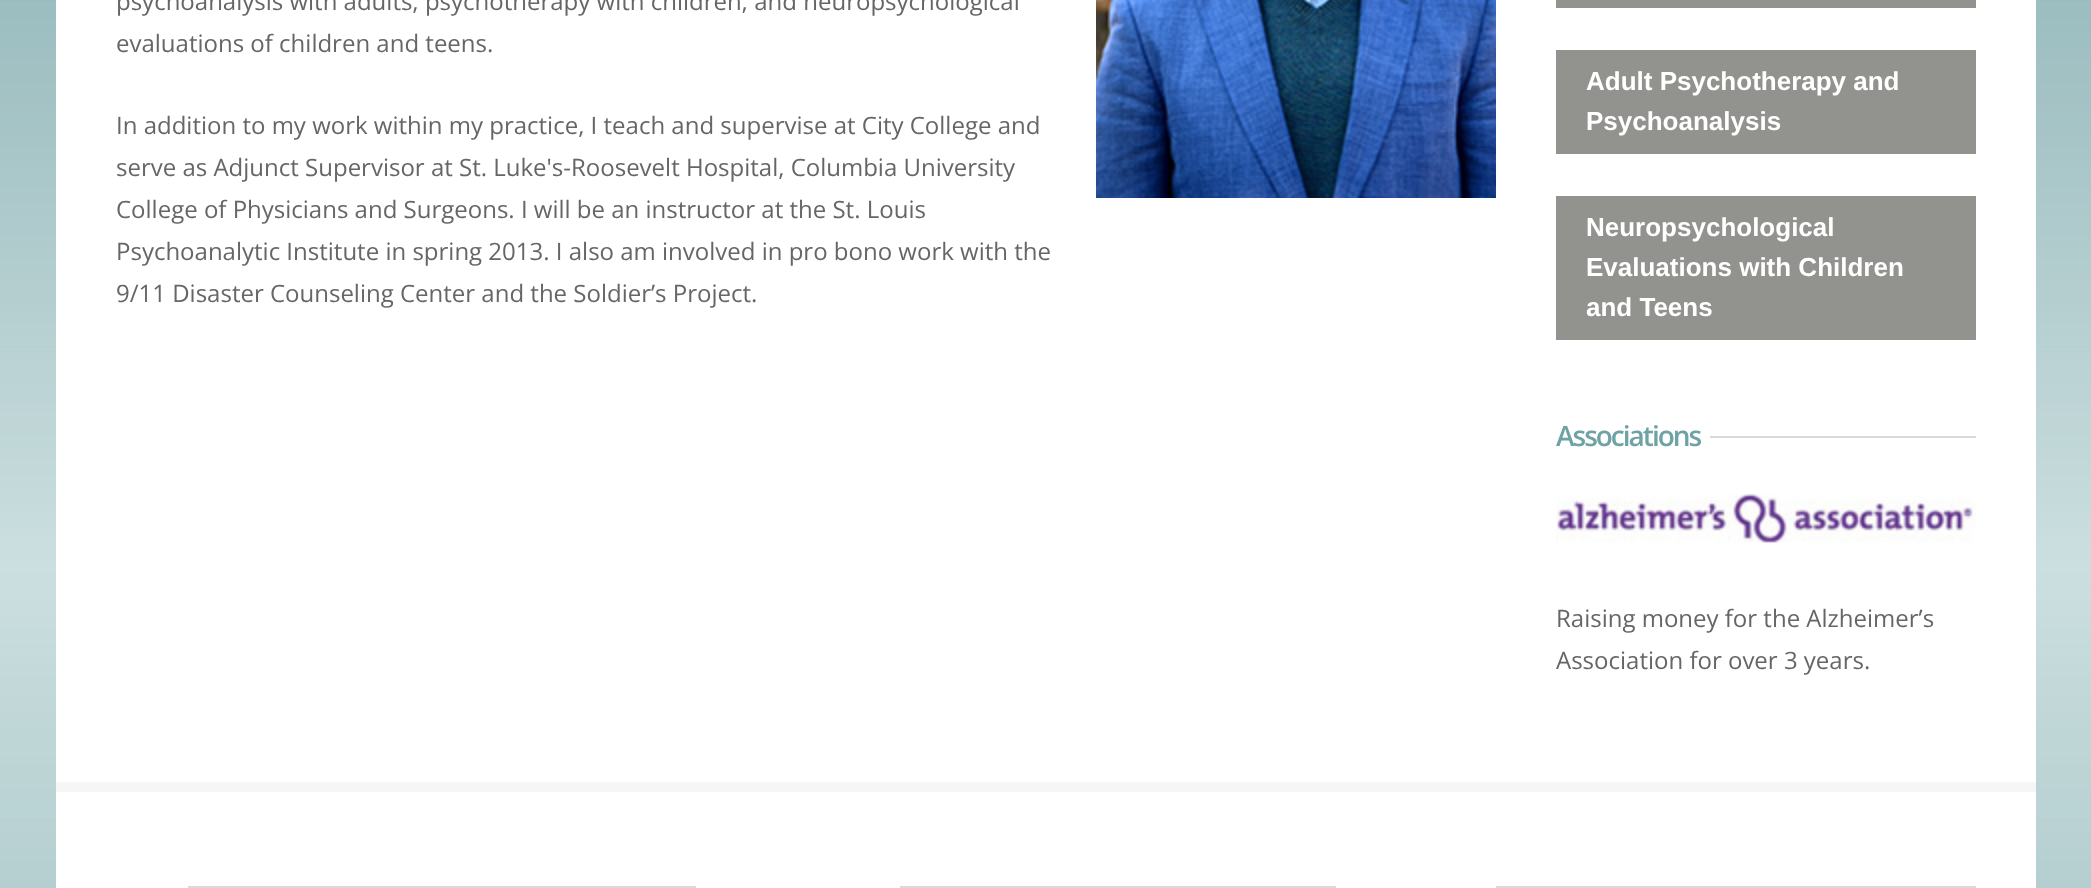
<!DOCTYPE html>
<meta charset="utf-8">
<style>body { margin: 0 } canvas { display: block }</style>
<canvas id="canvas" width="2091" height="888"></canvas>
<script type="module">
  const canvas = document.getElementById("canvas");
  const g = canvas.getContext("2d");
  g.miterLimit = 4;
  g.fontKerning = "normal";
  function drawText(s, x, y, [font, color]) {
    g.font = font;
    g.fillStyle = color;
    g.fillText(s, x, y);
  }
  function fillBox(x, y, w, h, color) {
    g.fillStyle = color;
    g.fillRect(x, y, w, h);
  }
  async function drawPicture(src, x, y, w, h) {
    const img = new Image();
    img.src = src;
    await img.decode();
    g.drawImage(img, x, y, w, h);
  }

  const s1 = ["24px Open Sans", "#666666"];
  const s2 = ["bold 26px Liberation Sans", "#FFFFFF"];
  const s3 = ["600 28px Open Sans", "#6EA2A4"];

  fillBox(0, 0, 2091, 888, "#FFFFFF");
  await drawPicture("pic1.png", 0, 0, 2091, 888);
  fillBox(56, 0, 1980, 888, "#FFFFFF");
  drawText("psychoanalysis with adults; psychotherapy with children; and neuropsychological", 116, 10, s1);
  drawText("evaluations of children and teens.", 116, 52, s1);
  await drawPicture("pic2.png", 1096, 0, 400, 198);
  drawText("In addition to my work within my practice, I teach and supervise at City College and", 116, 134, s1);
  drawText("serve as Adjunct Supervisor at St. Luke's-Roosevelt Hospital, Columbia University", 116, 176, s1);
  drawText("College of Physicians and Surgeons. I will be an instructor at the St. Louis", 116, 218, s1);
  drawText("Psychoanalytic Institute in spring 2013. I also am involved in pro bono work with the", 116, 260, s1);
  drawText("9/11 Disaster Counseling Center and the Soldier’s Project.", 116, 302, s1);
  fillBox(1556, 0, 420, 8, "#92938F");
  fillBox(1556, 50, 420, 104, "#92938F");
  drawText("Adult Psychotherapy and", 1586, 90, s2);
  drawText("Psychoanalysis", 1586, 130, s2);
  fillBox(1556, 196, 420, 144, "#92938F");
  drawText("Neuropsychological", 1586, 236, s2);
  drawText("Evaluations with Children", 1586, 276, s2);
  drawText("and Teens", 1586, 316, s2);
  fillBox(1710, 436, 266, 2, "#D9D9D9");
  g.letterSpacing = "-2px";
  drawText("Associations", 1556, 446, s3);
  await drawPicture("pic3.png", 1556, 494, 420, 49);
  g.letterSpacing = "0px";
  drawText("Raising money for the Alzheimer’s", 1556, 627, s1);
  drawText("Association for over 3 years.", 1556, 669, s1);
  fillBox(56, 782, 1980, 10, "#F6F6F6");
  fillBox(188, 886, 508, 2, "#D9D9D9");
  fillBox(900, 886, 436, 2, "#D9D9D9");
  fillBox(1496, 886, 480, 2, "#D9D9D9");
</script>
